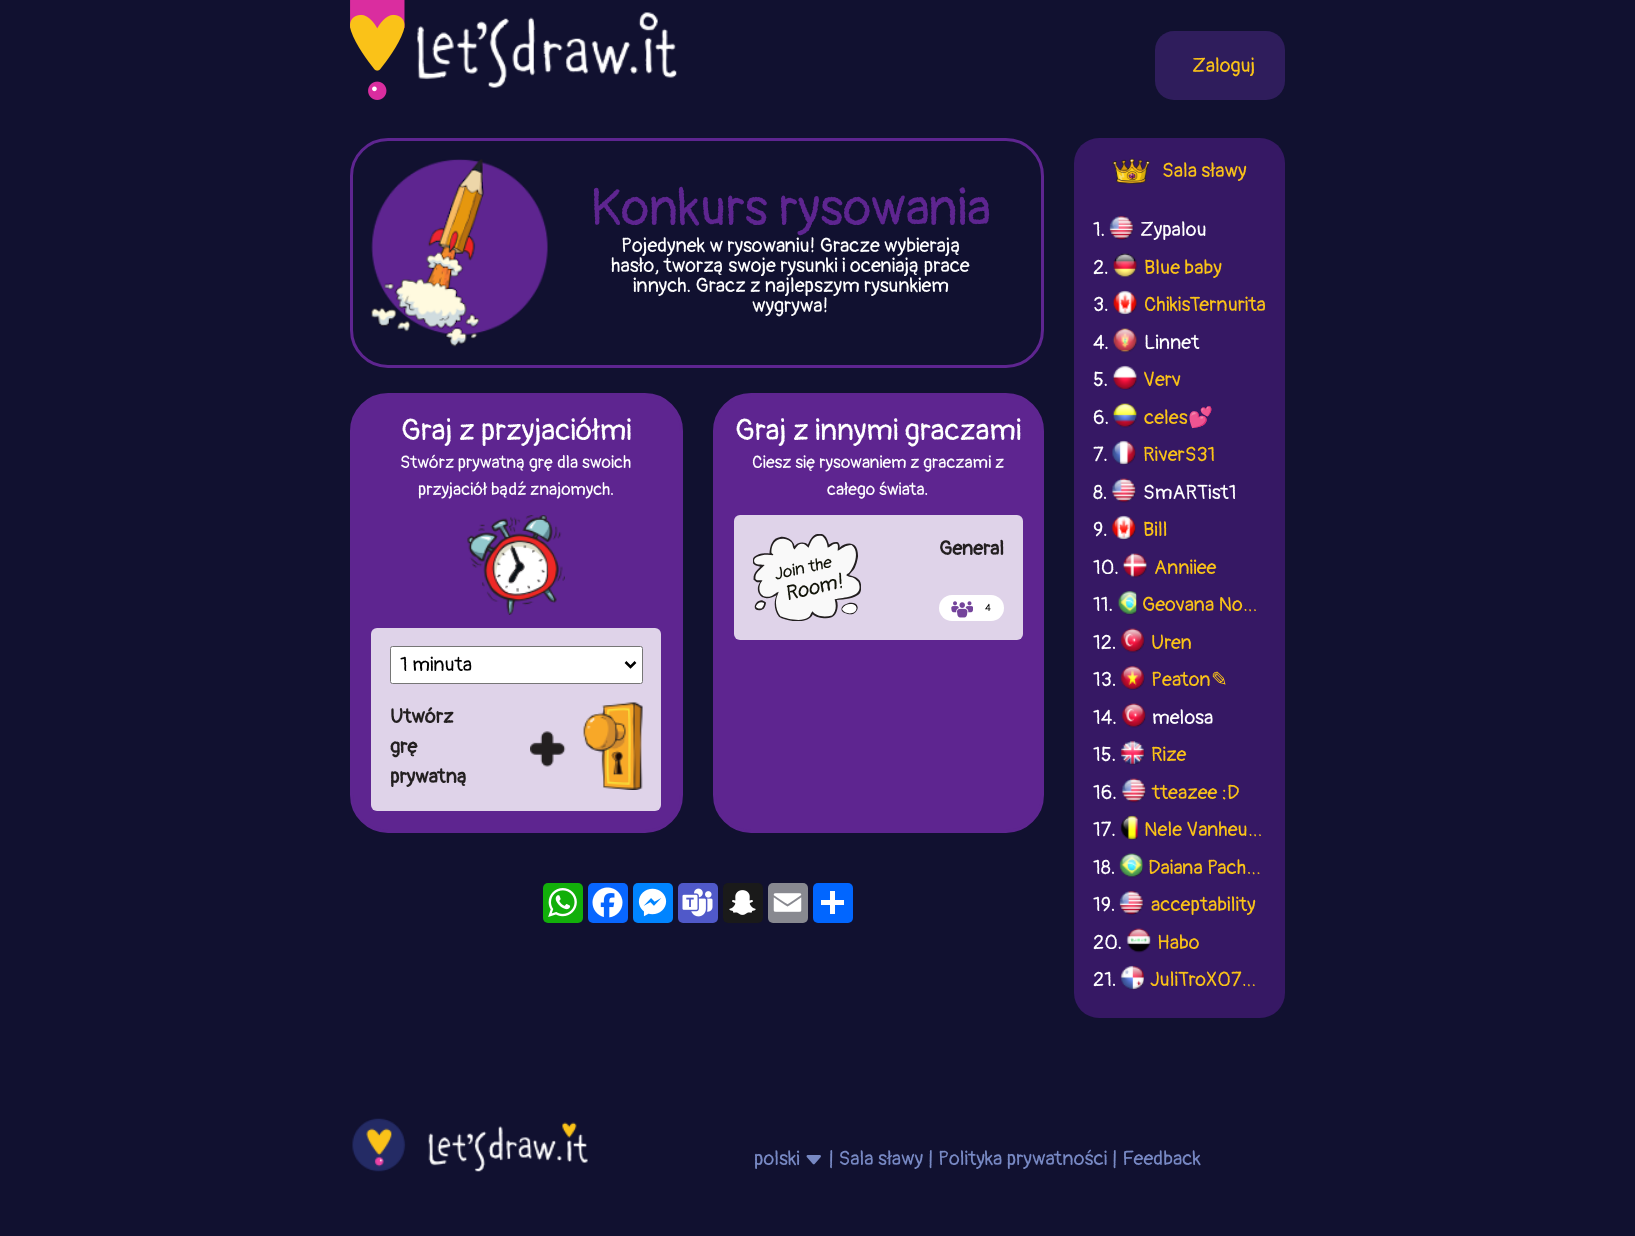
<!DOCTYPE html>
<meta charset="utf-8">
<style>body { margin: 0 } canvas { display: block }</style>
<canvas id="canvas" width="1635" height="1236"></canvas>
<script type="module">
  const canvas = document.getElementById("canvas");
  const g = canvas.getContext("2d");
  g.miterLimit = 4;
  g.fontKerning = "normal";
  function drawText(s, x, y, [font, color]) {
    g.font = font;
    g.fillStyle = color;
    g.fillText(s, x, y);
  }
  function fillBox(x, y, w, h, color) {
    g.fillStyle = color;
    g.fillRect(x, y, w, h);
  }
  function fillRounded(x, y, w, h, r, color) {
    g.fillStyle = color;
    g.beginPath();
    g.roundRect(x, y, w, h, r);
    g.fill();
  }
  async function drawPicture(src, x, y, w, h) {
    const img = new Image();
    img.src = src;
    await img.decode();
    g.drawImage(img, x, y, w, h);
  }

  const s1 = ["20px Pangolin", "#FAC218"];
  const s2 = ["52px Pangolin", "#5E2590"];
  const s3 = ["20px Pangolin", "#FFFFFF"];
  const s4 = ["30px Pangolin", "#FFFFFF"];
  const s5 = ["17.5px Pangolin", "#FFFFFF"];
  const s6 = ["20px Pangolin", "#000000"];
  const s7 = ["bold 20px Pangolin", "#231F20"];
  const s8 = ["10px Pangolin", "#000000"];
  const s9 = ["20px Noto Color Emoji", "#FAC218"];
  const s10 = ["20px DejaVu Sans", "#FAC218"];
  const s11 = ["20px Pangolin", "#7889C4"];

  fillBox(0, 0, 1635, 1236, "#111130");
  await drawPicture("pic1.png", 350, 0, 55, 100);
  await drawPicture("pic2.png", 417, 12, 260, 76);
  fillRounded(1155, 31, 130, 69, 19, "#2F1D5C");
  drawText("Zaloguj", 1192, 72, s1);
  g.beginPath();
  g.roundRect(351.5, 139.5, 691, 227, 36.5);
  g.strokeStyle = "#5E2590";
  g.lineWidth = 3;
  g.stroke();
  await drawPicture("pic3.png", 371, 159, 177, 188);
  drawText("Konkurs rysowania", 590, 225, s2);
  drawText("Pojedynek w rysowaniu! Gracze wybierają", 621, 252, s3);
  drawText("hasło, tworzą swoje rysunki i oceniają prace", 611, 272, s3);
  drawText("innych. Gracz z najlepszym rysunkiem", 633, 292, s3);
  drawText("wygrywa!", 752, 312, s3);
  g.fillStyle = "#5E2590";
  g.beginPath();
  g.roundRect(351.5, 394.5, 330, 437, 36.5);
  g.fill();
  g.stroke();
  drawText("Graj z przyjaciółmi", 401, 440, s4);
  drawText("Stwórz prywatną grę dla swoich", 400, 468, s5);
  drawText("przyjaciół bądź znajomych.", 418, 495, s5);
  await drawPicture("pic4.png", 467, 515, 98, 100);
  fillRounded(371, 628, 290, 183, 6, "#DFD3E9");
  g.fillStyle = "#FFFFFF";
  g.beginPath();
  g.roundRect(390.5, 646.5, 252, 37, 2);
  g.fill();
  g.strokeStyle = "#767676";
  g.lineWidth = 1;
  g.stroke();
  g.beginPath();
  g.moveTo(625.5, 662);
  g.lineTo(630.5, 667);
  g.lineTo(635.5, 662);
  g.strokeStyle = "#000000";
  g.lineWidth = 2.5;
  g.stroke();
  drawText("1 minuta", 400, 671, s6);
  drawText("Utwórz", 390, 723, s7);
  drawText("grę", 390, 753, s7);
  drawText("prywatną", 390, 783, s7);
  await drawPicture("pic5.png", 530, 702, 113, 88);
  g.fillStyle = "#5E2590";
  g.beginPath();
  g.roundRect(714.5, 394.5, 328, 437, 36.5);
  g.fill();
  g.strokeStyle = "#5E2590";
  g.lineWidth = 3;
  g.stroke();
  drawText("Graj z innymi graczami", 735, 440, s4);
  drawText("Ciesz się rysowaniem z graczami z", 752, 468, s5);
  drawText("całego świata.", 827, 495, s5);
  fillRounded(734, 515, 289, 125, 6, "#DFD3E9");
  await drawPicture("pic6.png", 753, 534, 108, 87);
  drawText("General", 939, 555, s7);
  fillRounded(939, 595, 65, 26, 13, "#FFFFFF");
  await drawPicture("pic7.png", 951, 601, 22, 17);
  drawText("4", 985, 611, s8);
  fillRounded(543, 883, 40, 40, 5, "#12AF0A");
  await drawPicture("pic8.png", 548, 888, 29, 29);
  fillRounded(588, 883, 40, 40, 5, "#0866FF");
  await drawPicture("pic9.png", 592, 887, 31, 31);
  fillRounded(633, 883, 40, 40, 5, "#0084FF");
  await drawPicture("pic10.png", 638, 888, 29, 29);
  fillRounded(678, 883, 40, 40, 5, "#5059C9");
  await drawPicture("pic11.png", 682, 888, 31, 29);
  fillRounded(723, 883, 40, 40, 5, "#1A1A1A");
  await drawPicture("pic12.png", 729, 890, 27, 25);
  fillRounded(768, 883, 40, 40, 5, "#888990");
  await drawPicture("pic13.png", 773, 893, 29, 19);
  fillRounded(813, 883, 40, 40, 5, "#0166FF");
  fillBox(830, 891, 5, 23, "#FFFFFF");
  fillBox(821, 900, 23, 5, "#FFFFFF");
  fillRounded(1074, 138, 211, 880, 25, "#361864");
  await drawPicture("pic14.png", 1112, 158, 38, 26);
  drawText("Sala sławy", 1162, 177, s1);
  drawText("1.", 1093, 236, s3);
  await drawPicture("pic15.png", 1109, 215, 25, 25);
  drawText("Zypalou", 1140, 236, s3);
  drawText("2.", 1093, 274, s3);
  await drawPicture("pic16.png", 1113, 253, 25, 25);
  drawText("Blue baby", 1144, 274, s1);
  drawText("3.", 1093, 311, s3);
  await drawPicture("pic17.png", 1112, 290, 26, 25);
  drawText("ChikisTernurita", 1144, 311, s1);
  drawText("4.", 1093, 349, s3);
  await drawPicture("pic18.png", 1112, 328, 26, 25);
  drawText("Linnet", 1144, 349, s3);
  drawText("5.", 1093, 386, s3);
  await drawPicture("pic19.png", 1112, 365, 26, 25);
  drawText("Verv", 1143, 386, s1);
  drawText("6.", 1093, 424, s3);
  await drawPicture("pic20.png", 1112, 403, 26, 25);
  drawText("celes", 1144, 424, s1);
  drawText("💕", 1188, 424, s9);
  drawText("7.", 1093, 461, s3);
  await drawPicture("pic21.png", 1112, 440, 24, 25);
  drawText("RiverS31", 1143, 461, s1);
  drawText("8.", 1093, 499, s3);
  await drawPicture("pic22.png", 1111, 478, 25, 25);
  drawText("SmARTist1", 1143, 499, s3);
  drawText("9.", 1093, 536, s3);
  await drawPicture("pic23.png", 1111, 515, 25, 25);
  drawText("Bill", 1143, 536, s1);
  drawText("10.", 1093, 574, s3);
  await drawPicture("pic24.png", 1122, 553, 25, 25);
  drawText("Anniiee", 1154, 574, s1);
  drawText("11.", 1093, 611, s3);
  await drawPicture("pic25.png", 1117, 591, 20, 24);
  drawText("Geovana No…", 1142, 611, s1);
  drawText("12.", 1093, 649, s3);
  await drawPicture("pic26.png", 1120, 628, 25, 25);
  drawText("Uren", 1151, 649, s1);
  drawText("13.", 1093, 686, s3);
  await drawPicture("pic27.png", 1120, 665, 25, 25);
  drawText("Peaton", 1151, 686, s1);
  drawText("✎", 1211, 686, s10);
  drawText("14.", 1093, 724, s3);
  await drawPicture("pic28.png", 1121, 703, 25, 25);
  drawText("melosa", 1152, 724, s3);
  drawText("15.", 1093, 761, s3);
  await drawPicture("pic29.png", 1120, 740, 25, 25);
  drawText("Rize", 1151, 761, s1);
  drawText("16.", 1093, 799, s3);
  await drawPicture("pic30.png", 1121, 778, 25, 25);
  drawText("tteazee :D", 1152, 799, s1);
  drawText("17.", 1093, 836, s3);
  await drawPicture("pic31.png", 1120, 815, 18, 25);
  drawText("Nele Vanheu…", 1144, 836, s1);
  drawText("18.", 1093, 874, s3);
  await drawPicture("pic32.png", 1119, 853, 24, 25);
  drawText("Daiana Pach…", 1148, 874, s1);
  drawText("19.", 1093, 911, s3);
  await drawPicture("pic15.png", 1119, 890, 25, 25);
  drawText("acceptability", 1151, 911, s1);
  drawText("20.", 1093, 949, s3);
  await drawPicture("pic33.png", 1126, 928, 25, 25);
  drawText("Habo", 1157, 949, s1);
  drawText("21.", 1093, 986, s3);
  await drawPicture("pic34.png", 1120, 965, 24, 25);
  drawText("JuliTroX07…", 1150, 986, s1);
  await drawPicture("pic35.png", 352, 1118, 236, 54);
  drawText("polski", 754, 1165, s11);
  await drawPicture("pic36.png", 806, 1155, 15, 10);
  drawText("| Sala sławy | Polityka prywatności | Feedback", 828, 1165, s11);
</script>
